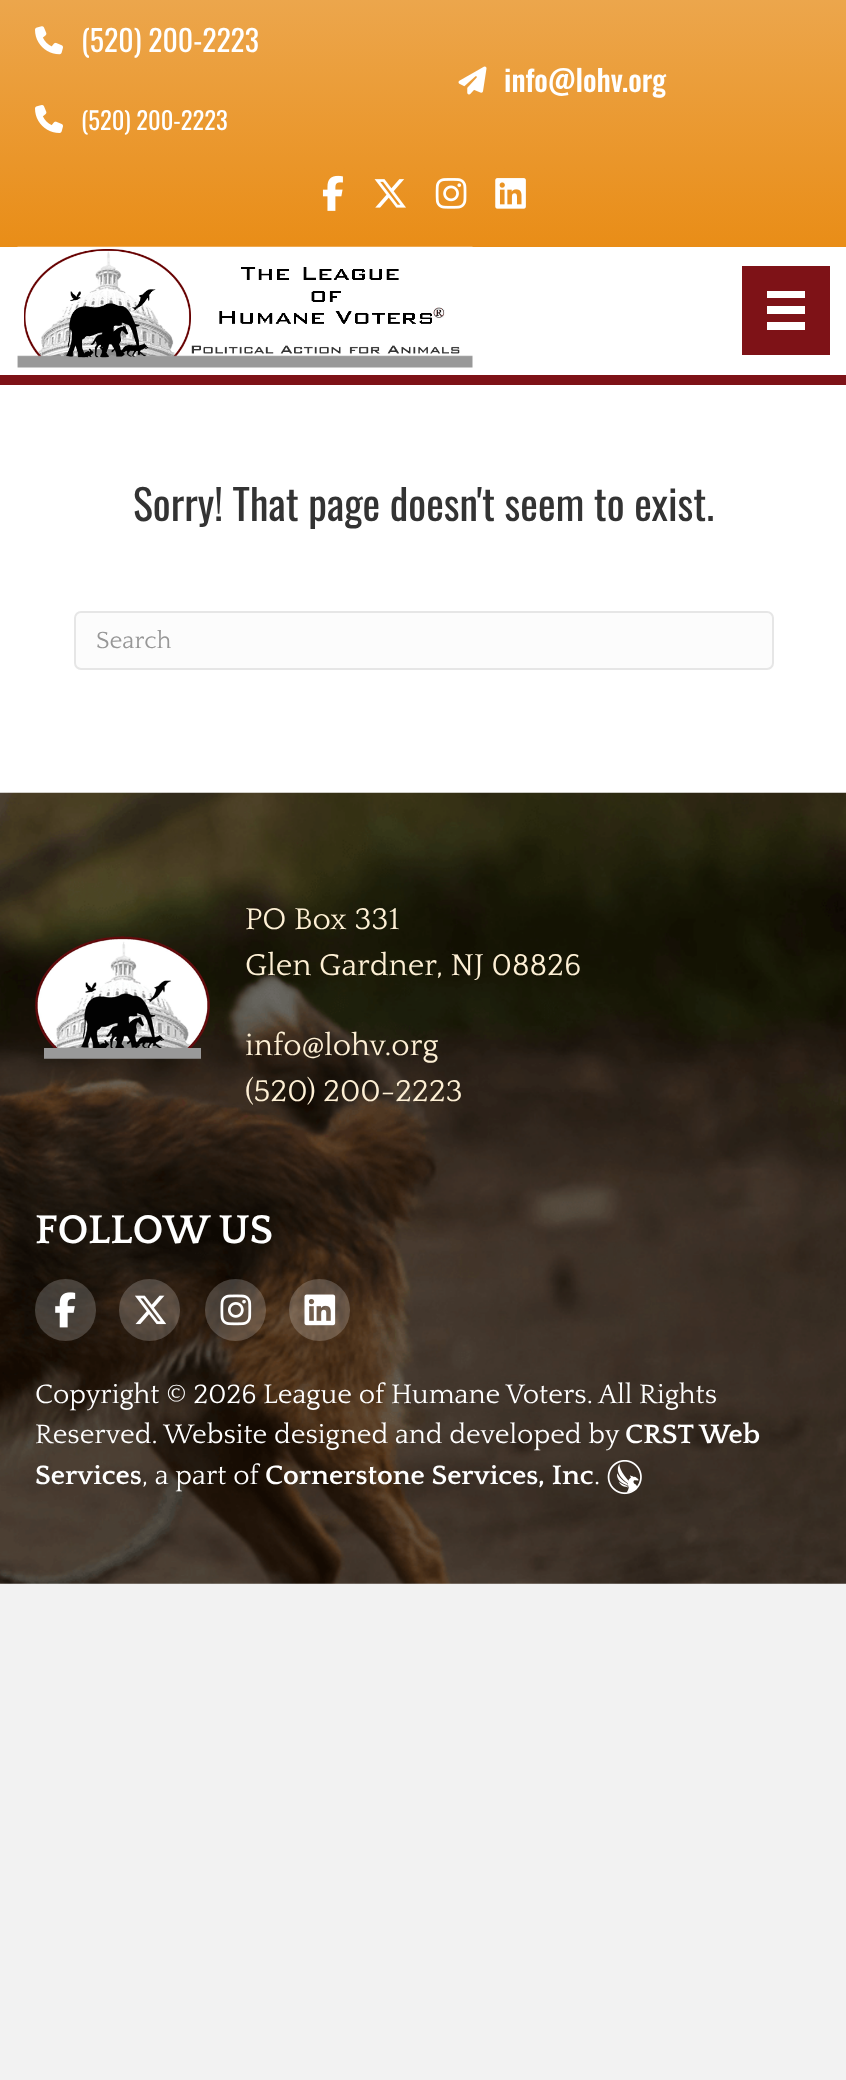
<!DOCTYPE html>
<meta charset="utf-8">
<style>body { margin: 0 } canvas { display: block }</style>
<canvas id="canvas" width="846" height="2080"></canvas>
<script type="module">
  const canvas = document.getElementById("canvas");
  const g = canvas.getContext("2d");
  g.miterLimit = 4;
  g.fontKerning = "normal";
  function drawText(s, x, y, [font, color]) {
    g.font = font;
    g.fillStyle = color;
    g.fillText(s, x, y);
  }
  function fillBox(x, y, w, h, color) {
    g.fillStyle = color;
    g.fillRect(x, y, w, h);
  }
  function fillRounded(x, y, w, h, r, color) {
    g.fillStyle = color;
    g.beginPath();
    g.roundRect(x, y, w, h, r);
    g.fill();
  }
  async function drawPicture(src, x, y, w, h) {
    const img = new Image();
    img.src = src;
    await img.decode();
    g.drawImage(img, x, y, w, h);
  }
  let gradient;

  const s1 = ["29.75px Oswald", "#FFFFFF"];
  const s2 = ["24.5px Oswald", "#FFFFFF"];
  const s3 = ["500 29.75px Oswald", "#FFFFFF"];
  const s4 = ["42px Oswald", "#333333"];
  const s5 = ["24.5px Quattrocento", "#979797"];
  const s6 = ["31.5px Quattrocento", "#FEF0D5"];
  const s7 = ["bold 42px Quattrocento", "#FFFFFF"];
  const s8 = ["28px Quattrocento", "#FFFFFF"];
  const s9 = ["bold 28px Quattrocento", "#FFFFFF"];

  fillBox(0, 0, 846, 2080, "#F2F2F2");
  gradient = g.createLinearGradient(424, 0, 424, 247);
  gradient.addColorStop(0, "#ECA64C");
  gradient.addColorStop(1, "#E98D17");
  g.fillStyle = gradient;
  g.fillRect(0, 0, 846, 247);
  await drawPicture("pic1.png", 35, 26, 28, 29);
  drawText("(520) 200-2223", 81, 52, s1);
  await drawPicture("pic2.png", 35, 105, 28, 28);
  drawText("(520) 200-2223", 81, 130, s2);
  await drawPicture("pic3.png", 458, 66, 29, 29);
  drawText("info@lohv.org", 504, 92, s3);
  await drawPicture("pic4.png", 322, 175, 21, 36);
  await drawPicture("pic5.png", 374, 179, 32, 29);
  await drawPicture("pic6.png", 435, 178, 32, 31);
  await drawPicture("pic7.png", 495, 178, 31, 31);
  fillBox(0, 247, 846, 128, "#FFFFFF");
  fillBox(0, 375, 846, 10, "#7E1217");
  await drawPicture("pic8.png", 17, 246, 456, 122);
  fillBox(742, 266, 88, 89, "#7E1217");
  fillBox(767, 291, 38, 7, "#FFFFFF");
  fillBox(767, 306, 38, 8, "#FFFFFF");
  fillBox(767, 322, 38, 8, "#FFFFFF");
  fillBox(0, 385, 846, 408, "#FFFFFF");
  drawText("Sorry! That page doesn't seem to exist.", 133, 521, s4);
  g.fillStyle = "#FCFCFC";
  g.beginPath();
  g.roundRect(75, 612, 698, 57, 6);
  g.fill();
  g.strokeStyle = "#E6E6E6";
  g.lineWidth = 2;
  g.stroke();
  drawText("Search", 96, 648, s5);
  await drawPicture("pic9.png", 0, 792, 846, 792);
  await drawPicture("pic10.png", 35, 936, 175, 123);
  drawText("PO Box 331", 245, 929, s6);
  drawText("Glen Gardner, NJ 08826", 245, 975, s6);
  drawText("info@lohv.org", 245, 1055, s6);
  drawText("(520) 200-2223", 245, 1101, s6);
  drawText("FOLLOW US", 35, 1243, s7);
  fillRounded(35, 1279, 61, 62, 30.5, "rgba(255, 255, 255, 0.2)");
  await drawPicture("pic11.png", 55, 1292, 21, 36);
  fillRounded(119, 1279, 61, 62, 30.5, "rgba(255, 255, 255, 0.2)");
  await drawPicture("pic12.png", 135, 1295, 32, 30);
  fillRounded(205, 1279, 61, 62, 30.5, "rgba(255, 255, 255, 0.2)");
  await drawPicture("pic13.png", 220, 1294, 32, 32);
  fillRounded(289, 1279, 61, 62, 30.5, "rgba(255, 255, 255, 0.2)");
  await drawPicture("pic14.png", 304, 1294, 32, 32);
  drawText("Copyright © 2026 League of Humane Voters. All Rights", 35, 1403, s8);
  drawText("Reserved. Website designed and developed by", 35, 1443, s8);
  drawText("CRST Web", 625, 1443, s9);
  drawText("Services", 35, 1484, s9);
  drawText(", a part of", 142, 1484, s8);
  drawText("Cornerstone Services, Inc", 265, 1484, s9);
  drawText(".", 594, 1484, s8);
  await drawPicture("pic15.png", 607, 1460, 35, 35);
</script>
